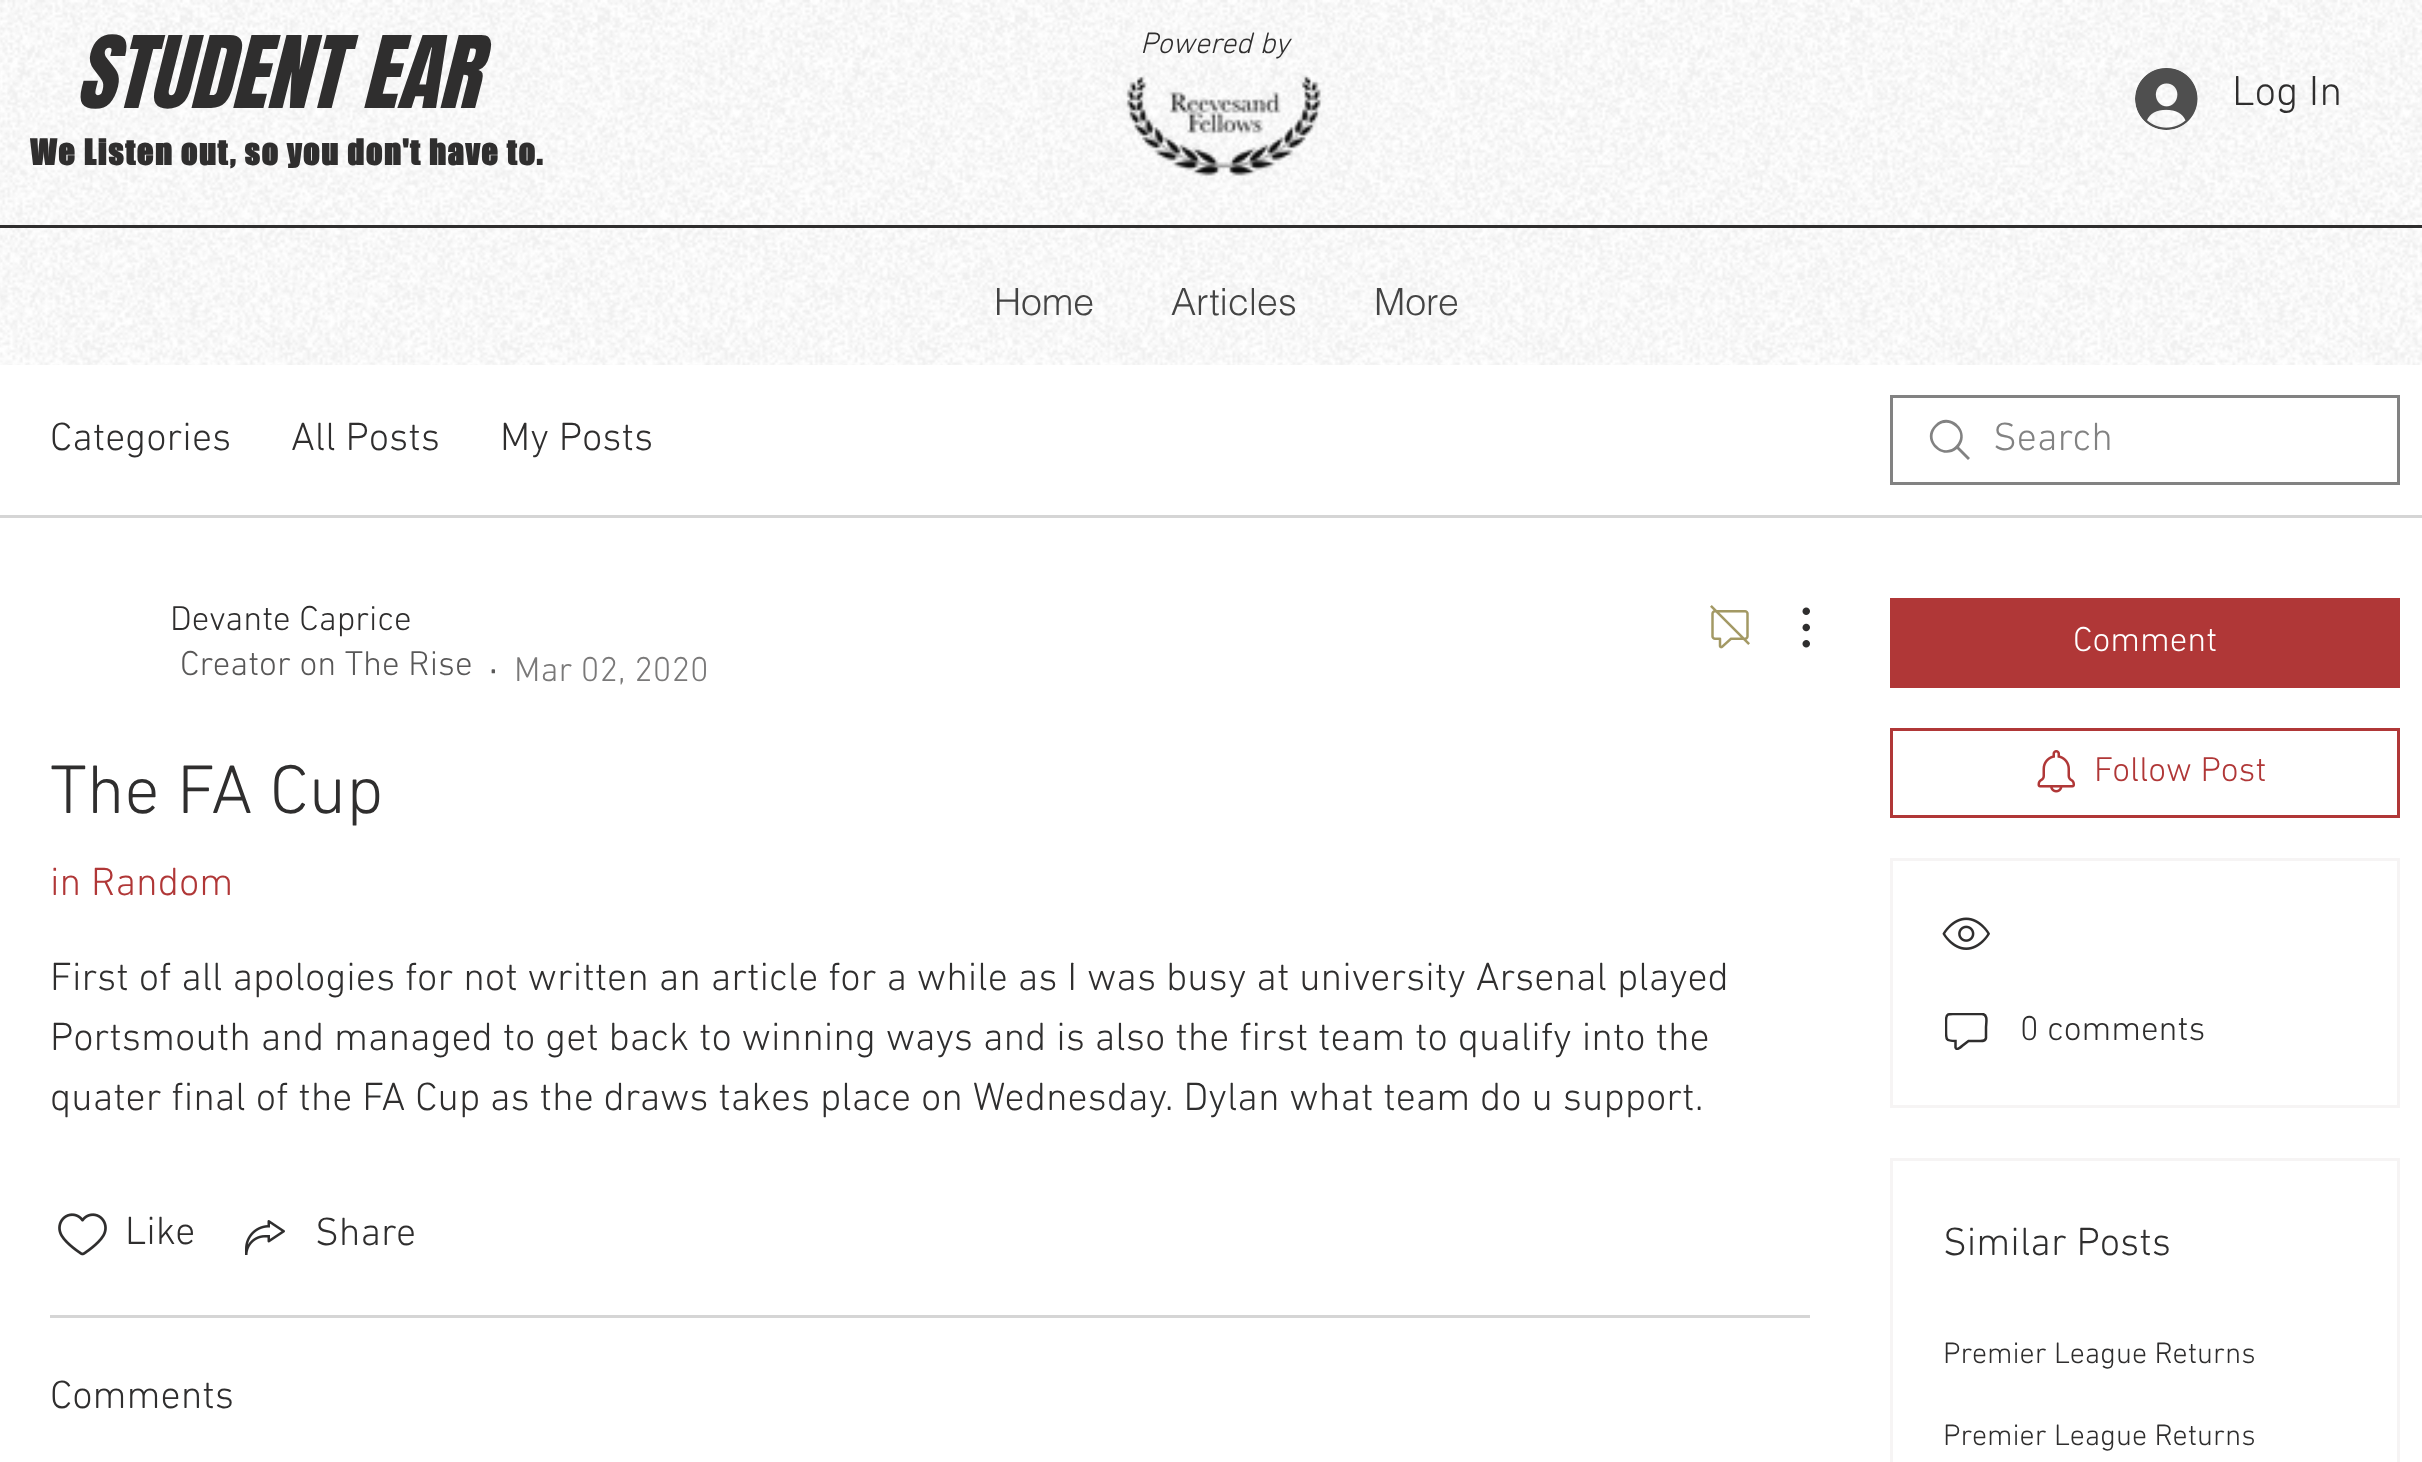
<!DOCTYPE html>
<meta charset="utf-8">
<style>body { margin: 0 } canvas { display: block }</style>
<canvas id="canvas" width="2422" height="1462"></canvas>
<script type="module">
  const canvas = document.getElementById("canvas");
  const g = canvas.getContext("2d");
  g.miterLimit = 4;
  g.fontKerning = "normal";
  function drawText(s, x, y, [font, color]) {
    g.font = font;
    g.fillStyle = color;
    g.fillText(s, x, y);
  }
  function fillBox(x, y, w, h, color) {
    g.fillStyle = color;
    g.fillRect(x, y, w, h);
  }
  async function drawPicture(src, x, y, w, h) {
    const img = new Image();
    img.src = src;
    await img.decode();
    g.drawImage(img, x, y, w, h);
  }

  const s1 = ["italic 85px Anton", "#2F2E2E"];
  const s2 = ["italic 300 30px 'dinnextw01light'", "#2F2E2E"];
  const s3 = ["300 42.5px 'dinnextw01light'", "#2F2E2E"];
  const s4 = ["bold 32.5px 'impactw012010'", "#2F2E2E"];
  const s5 = ["300 37.5px helvetica", "#444444"];
  const s6 = ["300 40px 'dinnextw01light'", "#2F2E2E"];
  const s7 = ["300 40px 'dinnextw01light'", "#828282"];
  const s8 = ["300 35px 'dinnextw01light'", "#2F2E2E"];
  const s9 = ["300 35px 'dinnextw01light'", "#595858"];
  const s10 = ["bold 35px 'dinnextw01light'", "#595858"];
  const s11 = ["300 35px 'dinnextw01light'", "#7A7979"];
  const s12 = ["300 70px 'dinnextw01light'", "#2F2E2E"];
  const s13 = ["300 40px 'dinnextw01light'", "#B03737"];
  const s14 = ["300 35px 'dinnextw01light'", "#FFFFFF"];
  const s15 = ["300 35px 'dinnextw01light'", "#B03737"];
  const s16 = ["300 30px 'dinnextw01light'", "#2F2E2E"];

  fillBox(0, 0, 2422, 1462, "#FFFFFF");
  await drawPicture("pic1.png", 0, 0, 2422, 365);
  drawText("STUDENT EAR", 75, 108, s1);
  drawText("Powered by", 1140, 53, s2);
  await drawPicture("pic2.png", 1126, 75, 195, 101);
  await drawPicture("pic3.png", 2135, 68, 63, 62);
  drawText("Log In", 2232, 105, s3);
  g.letterSpacing = "1.6px";
  drawText("We Listen out, so you don't have to.", 30, 165, s4);
  fillBox(0, 225, 2422, 3, "#2F2E2E");
  g.letterSpacing = "0px";
  drawText("Home", 994, 315, s5);
  drawText("Articles", 1171, 315, s5);
  drawText("More", 1374, 315, s5);
  fillBox(0, 515, 2422, 3, "#D5D5D5");
  drawText("Categories", 50, 450, s6);
  drawText("All Posts", 291, 450, s6);
  drawText("My Posts", 500, 450, s6);
  g.fillStyle = "#828282";
  g.beginPath();
  g.moveTo(1937, 446);
  g.bezierCurveTo(1924, 433, 1943, 414, 1956, 427);
  g.bezierCurveTo(1969, 439, 1949, 459, 1937, 446);
  g.closePath();
  g.moveTo(1970, 458);
  g.lineTo(1959, 447);
  g.bezierCurveTo(1972, 431, 1949, 410, 1935, 425);
  g.bezierCurveTo(1920, 439, 1941, 462, 1957, 449);
  g.lineTo(1968, 460);
  g.closePath();
  g.fill("evenodd");
  g.strokeStyle = "#828282";
  g.lineWidth = 3;
  g.strokeRect(1891.5, 396.5, 507, 87);
  drawText("Search", 1993, 450, s7);
  drawText("Devante Caprice", 170, 630, s8);
  drawText("Creator on The Rise", 180, 675, s9);
  drawText("·", 489, 681, s10);
  drawText("Mar 02, 2020", 514, 681, s11);
  await drawPicture("pic4.png", 1710, 605, 40, 44);
  await drawPicture("pic5.png", 1802, 607, 8, 41);
  drawText("The FA Cup", 50, 813, s12);
  drawText("in Random", 50, 895, s13);
  drawText("First of all apologies for not written an article for a while as I was busy at university Arsenal played", 50, 990, s6);
  drawText("Portsmouth and managed to get back to winning ways and is also the first team to qualify into the", 50, 1050, s6);
  drawText("quater final of the FA Cup as the draws takes place on Wednesday. Dylan what team do u support.", 50, 1110, s6);
  await drawPicture("pic6.png", 58, 1213, 49, 43);
  drawText("Like", 125, 1244, s6);
  await drawPicture("pic7.png", 245, 1220, 40, 35);
  drawText("Share", 315, 1245, s6);
  fillBox(50, 1315, 1760, 3, "#D5D5D5");
  drawText("Comments", 50, 1408, s6);
  fillBox(1890, 598, 510, 90, "#B03737");
  drawText("Comment", 2073, 651, s14);
  g.strokeStyle = "#B03737";
  g.strokeRect(1891.5, 729.5, 507, 87);
  await drawPicture("pic8.png", 2037, 750, 38, 43);
  drawText("Follow Post", 2094, 781, s15);
  g.strokeStyle = "#F6F4F4";
  g.strokeRect(1891.5, 859.5, 507, 247);
  await drawPicture("pic9.png", 1942, 917, 48, 33);
  g.save();
  g.beginPath();
  g.rect(1945, 1013, 43, 37);
  g.clip();
  g.beginPath();
  g.moveTo(1968.5, 1041);
  g.lineTo(1962, 1046);
  g.bezierCurveTo(1961, 1047, 1956.5, 1051, 1955.5, 1047.5);
  g.lineTo(1955.5, 1041);
  g.bezierCurveTo(1946, 1041, 1946, 1040, 1946, 1030.5);
  g.lineTo(1946, 1021);
  g.bezierCurveTo(1946, 1013, 1948.5, 1014, 1956, 1014);
  g.lineTo(1982, 1014);
  g.bezierCurveTo(1988.5, 1014, 1986, 1023.5, 1986, 1027.5);
  g.lineTo(1986, 1038);
  g.bezierCurveTo(1985.5, 1042, 1980.5, 1041, 1977.5, 1041);
  g.closePath();
  g.strokeStyle = "#2F2E2E";
  g.lineWidth = 2.5;
  g.stroke();
  g.restore();
  drawText("0 comments", 2020, 1040, s8);
  g.strokeRect(1891.5, 1159.5, 507, 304);
  drawText("Similar Posts", 1943, 1255, s6);
  drawText("Premier League Returns", 1943, 1363, s16);
  drawText("Premier League Returns", 1943, 1445, s16);
</script>
